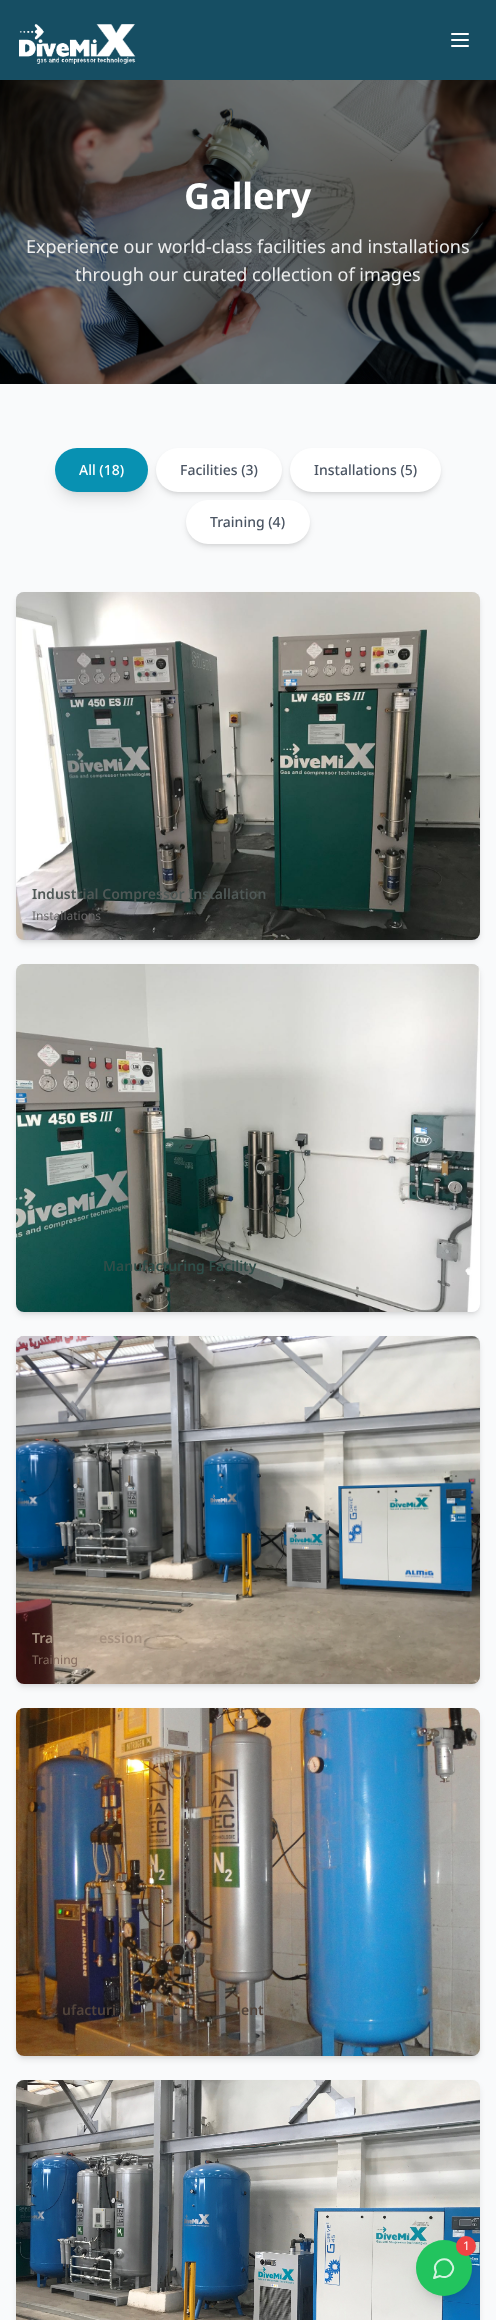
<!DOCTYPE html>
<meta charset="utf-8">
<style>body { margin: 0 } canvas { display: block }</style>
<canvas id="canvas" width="496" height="2320"></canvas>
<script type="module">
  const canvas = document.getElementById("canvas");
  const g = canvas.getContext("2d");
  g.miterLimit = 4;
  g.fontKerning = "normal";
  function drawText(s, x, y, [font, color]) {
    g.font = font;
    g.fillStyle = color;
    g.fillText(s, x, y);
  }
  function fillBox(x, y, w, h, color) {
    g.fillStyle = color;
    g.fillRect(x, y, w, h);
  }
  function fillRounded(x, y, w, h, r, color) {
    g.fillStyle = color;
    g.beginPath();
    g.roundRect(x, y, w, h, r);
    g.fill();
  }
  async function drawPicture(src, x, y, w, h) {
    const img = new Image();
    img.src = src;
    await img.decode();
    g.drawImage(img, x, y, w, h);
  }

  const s1 = ["bold 36px Noto Sans", "#FFFFFF"];
  const s2 = ["18px Noto Sans", "#EDEEEE"];
  const s3 = ["500 14px Noto Sans", "#FFFFFF"];
  const s4 = ["500 14px Noto Sans", "#4B5563"];
  const s5 = ["600 14px Noto Sans", "#4F5856"];
  const s6 = ["12px Noto Sans", "#686768"];
  const s7 = ["600 14px Noto Sans", "#2F4D48"];
  const s8 = ["600 14px Noto Sans", "#A4907F"];
  const s9 = ["12px Noto Sans", "#846C5F"];
  const s10 = ["600 14px Noto Sans", "#52443B"];
  const s11 = ["12px Noto Sans", "#FFFFFF"];

  fillBox(0, 0, 496, 2320, "#F9FAFB");
  fillBox(0, 0, 496, 80, "#164E63");
  await drawPicture("pic1.png", 19, 24, 117, 40);
  await drawPicture("pic2.png", 451, 33, 18, 14);
  await drawPicture("pic3.png", 0, 80, 496, 304);
  drawText("Gallery", 184, 209, s1);
  drawText("Experience our world-class facilities and installations", 26, 253, s2);
  drawText("through our curated collection of images", 75, 281, s2);
  g.fillStyle = "rgba(0, 0, 0, 0.1)";
  g.filter = "blur(3px)";
  g.beginPath();
  g.roundRect(59, 456, 85, 36, 18);
  g.fill();
  g.filter = "none";
  g.filter = "blur(7.5px)";
  g.beginPath();
  g.roundRect(58, 461, 87, 38, 19);
  g.fill();
  g.filter = "none";
  fillRounded(55, 448, 93, 44, 22, "#0891B2");
  drawText("All (18)", 79, 475, s3);
  g.fillStyle = "rgba(0, 0, 0, 0.1)";
  g.filter = "blur(2px)";
  g.beginPath();
  g.roundRect(158, 452, 122, 40, 20);
  g.fill();
  g.filter = "none";
  g.filter = "blur(3px)";
  g.beginPath();
  g.roundRect(157, 453, 124, 42, 21);
  g.fill();
  g.filter = "none";
  fillRounded(156, 448, 126, 44, 22, "#FFFFFF");
  drawText("Facilities (3)", 180, 475, s4);
  g.fillStyle = "rgba(0, 0, 0, 0.1)";
  g.filter = "blur(2px)";
  g.beginPath();
  g.roundRect(292, 452, 147, 40, 20);
  g.fill();
  g.filter = "none";
  g.filter = "blur(3px)";
  g.beginPath();
  g.roundRect(291, 453, 149, 42, 21);
  g.fill();
  g.filter = "none";
  fillRounded(290, 448, 151, 44, 22, "#FFFFFF");
  drawText("Installations (5)", 314, 475, s4);
  g.fillStyle = "rgba(0, 0, 0, 0.1)";
  g.filter = "blur(2px)";
  g.beginPath();
  g.roundRect(188, 504, 120, 40, 20);
  g.fill();
  g.filter = "none";
  g.filter = "blur(3px)";
  g.beginPath();
  g.roundRect(187, 505, 122, 42, 21);
  g.fill();
  g.filter = "none";
  fillRounded(186, 500, 124, 44, 22, "#FFFFFF");
  drawText("Training (4)", 210, 527, s4);
  g.fillStyle = "rgba(0, 0, 0, 0.1)";
  g.filter = "blur(2px)";
  g.beginPath();
  g.roundRect(18, 596, 460, 344, 6);
  g.fill();
  g.filter = "none";
  g.filter = "blur(3px)";
  g.beginPath();
  g.roundRect(17, 597, 462, 346, 7);
  g.fill();
  g.filter = "none";
  fillRounded(16, 592, 464, 348, 8, "#E5E7EB");
  await drawPicture("pic4.png", 16, 592, 464, 348);
  drawText("Industrial Compressor Installation", 32, 899, s5);
  drawText("Installations", 32, 920, s6);
  g.fillStyle = "rgba(0, 0, 0, 0.1)";
  g.filter = "blur(2px)";
  g.beginPath();
  g.roundRect(18, 968, 460, 344, 6);
  g.fill();
  g.filter = "none";
  g.filter = "blur(3px)";
  g.beginPath();
  g.roundRect(17, 969, 462, 346, 7);
  g.fill();
  g.filter = "none";
  fillRounded(16, 964, 464, 348, 8, "#E5E7EB");
  await drawPicture("pic5.png", 16, 964, 464, 348);
  drawText("Manufacturing Facility", 103, 1271, s7);
  g.fillStyle = "rgba(0, 0, 0, 0.1)";
  g.filter = "blur(2px)";
  g.beginPath();
  g.roundRect(18, 1340, 460, 344, 6);
  g.fill();
  g.filter = "none";
  g.filter = "blur(3px)";
  g.beginPath();
  g.roundRect(17, 1341, 462, 346, 7);
  g.fill();
  g.filter = "none";
  fillRounded(16, 1336, 464, 348, 8, "#E5E7EB");
  await drawPicture("pic6.png", 16, 1336, 464, 348);
  drawText("Tra", 32, 1643, s8);
  drawText("ession", 99, 1643, s8);
  drawText("Training", 32, 1664, s9);
  g.fillStyle = "rgba(0, 0, 0, 0.1)";
  g.filter = "blur(2px)";
  g.beginPath();
  g.roundRect(18, 1712, 460, 344, 6);
  g.fill();
  g.filter = "none";
  g.filter = "blur(3px)";
  g.beginPath();
  g.roundRect(17, 1713, 462, 346, 7);
  g.fill();
  g.filter = "none";
  fillRounded(16, 1708, 464, 348, 8, "#E5E7EB");
  await drawPicture("pic7.png", 16, 1708, 464, 348);
  drawText("ufacturi", 62, 2015, s10);
  drawText("i", 160, 2015, s10);
  drawText("t", 172, 2015, s10);
  drawText("ent", 241, 2015, s10);
  g.fillStyle = "rgba(0, 0, 0, 0.1)";
  g.filter = "blur(3px)";
  g.beginPath();
  g.roundRect(17, 2085, 462, 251, 7);
  g.fill();
  g.filter = "none";
  await drawPicture("pic8.png", 16, 2080, 464, 240);
  g.filter = "blur(3px)";
  g.beginPath();
  g.roundRect(420, 2248, 48, 48, 24);
  g.fill();
  g.filter = "none";
  g.filter = "blur(7.5px)";
  g.beginPath();
  g.roundRect(419, 2253, 50, 50, 25);
  g.fill();
  g.filter = "none";
  g.fillStyle = "#22C55E";
  g.beginPath();
  g.arc(444, 2268, 28, 0, Math.PI * 2);
  g.fill();
  g.beginPath();
  g.moveTo(440, 2276);
  g.bezierCurveTo(444.5, 2278.5, 450, 2276.5, 452, 2272);
  g.bezierCurveTo(453.5, 2269.5, 453.5, 2266.5, 452, 2264.5);
  g.bezierCurveTo(447, 2253.5, 430.5, 2261.5, 436, 2272);
  g.lineTo(434, 2278);
  g.closePath();
  g.strokeStyle = "#FFFFFF";
  g.lineWidth = 2;
  g.lineCap = "round";
  g.lineJoin = "round";
  g.stroke();
  g.fillStyle = "rgba(34, 197, 94, 0.2)";
  g.beginPath();
  g.arc(444, 2268, 28, 0, Math.PI * 2);
  g.fill();
  g.fillStyle = "#EF4444";
  g.beginPath();
  g.arc(466, 2246, 10, 0, Math.PI * 2);
  g.fill();
  drawText("1", 463, 2250, s11);
</script>
